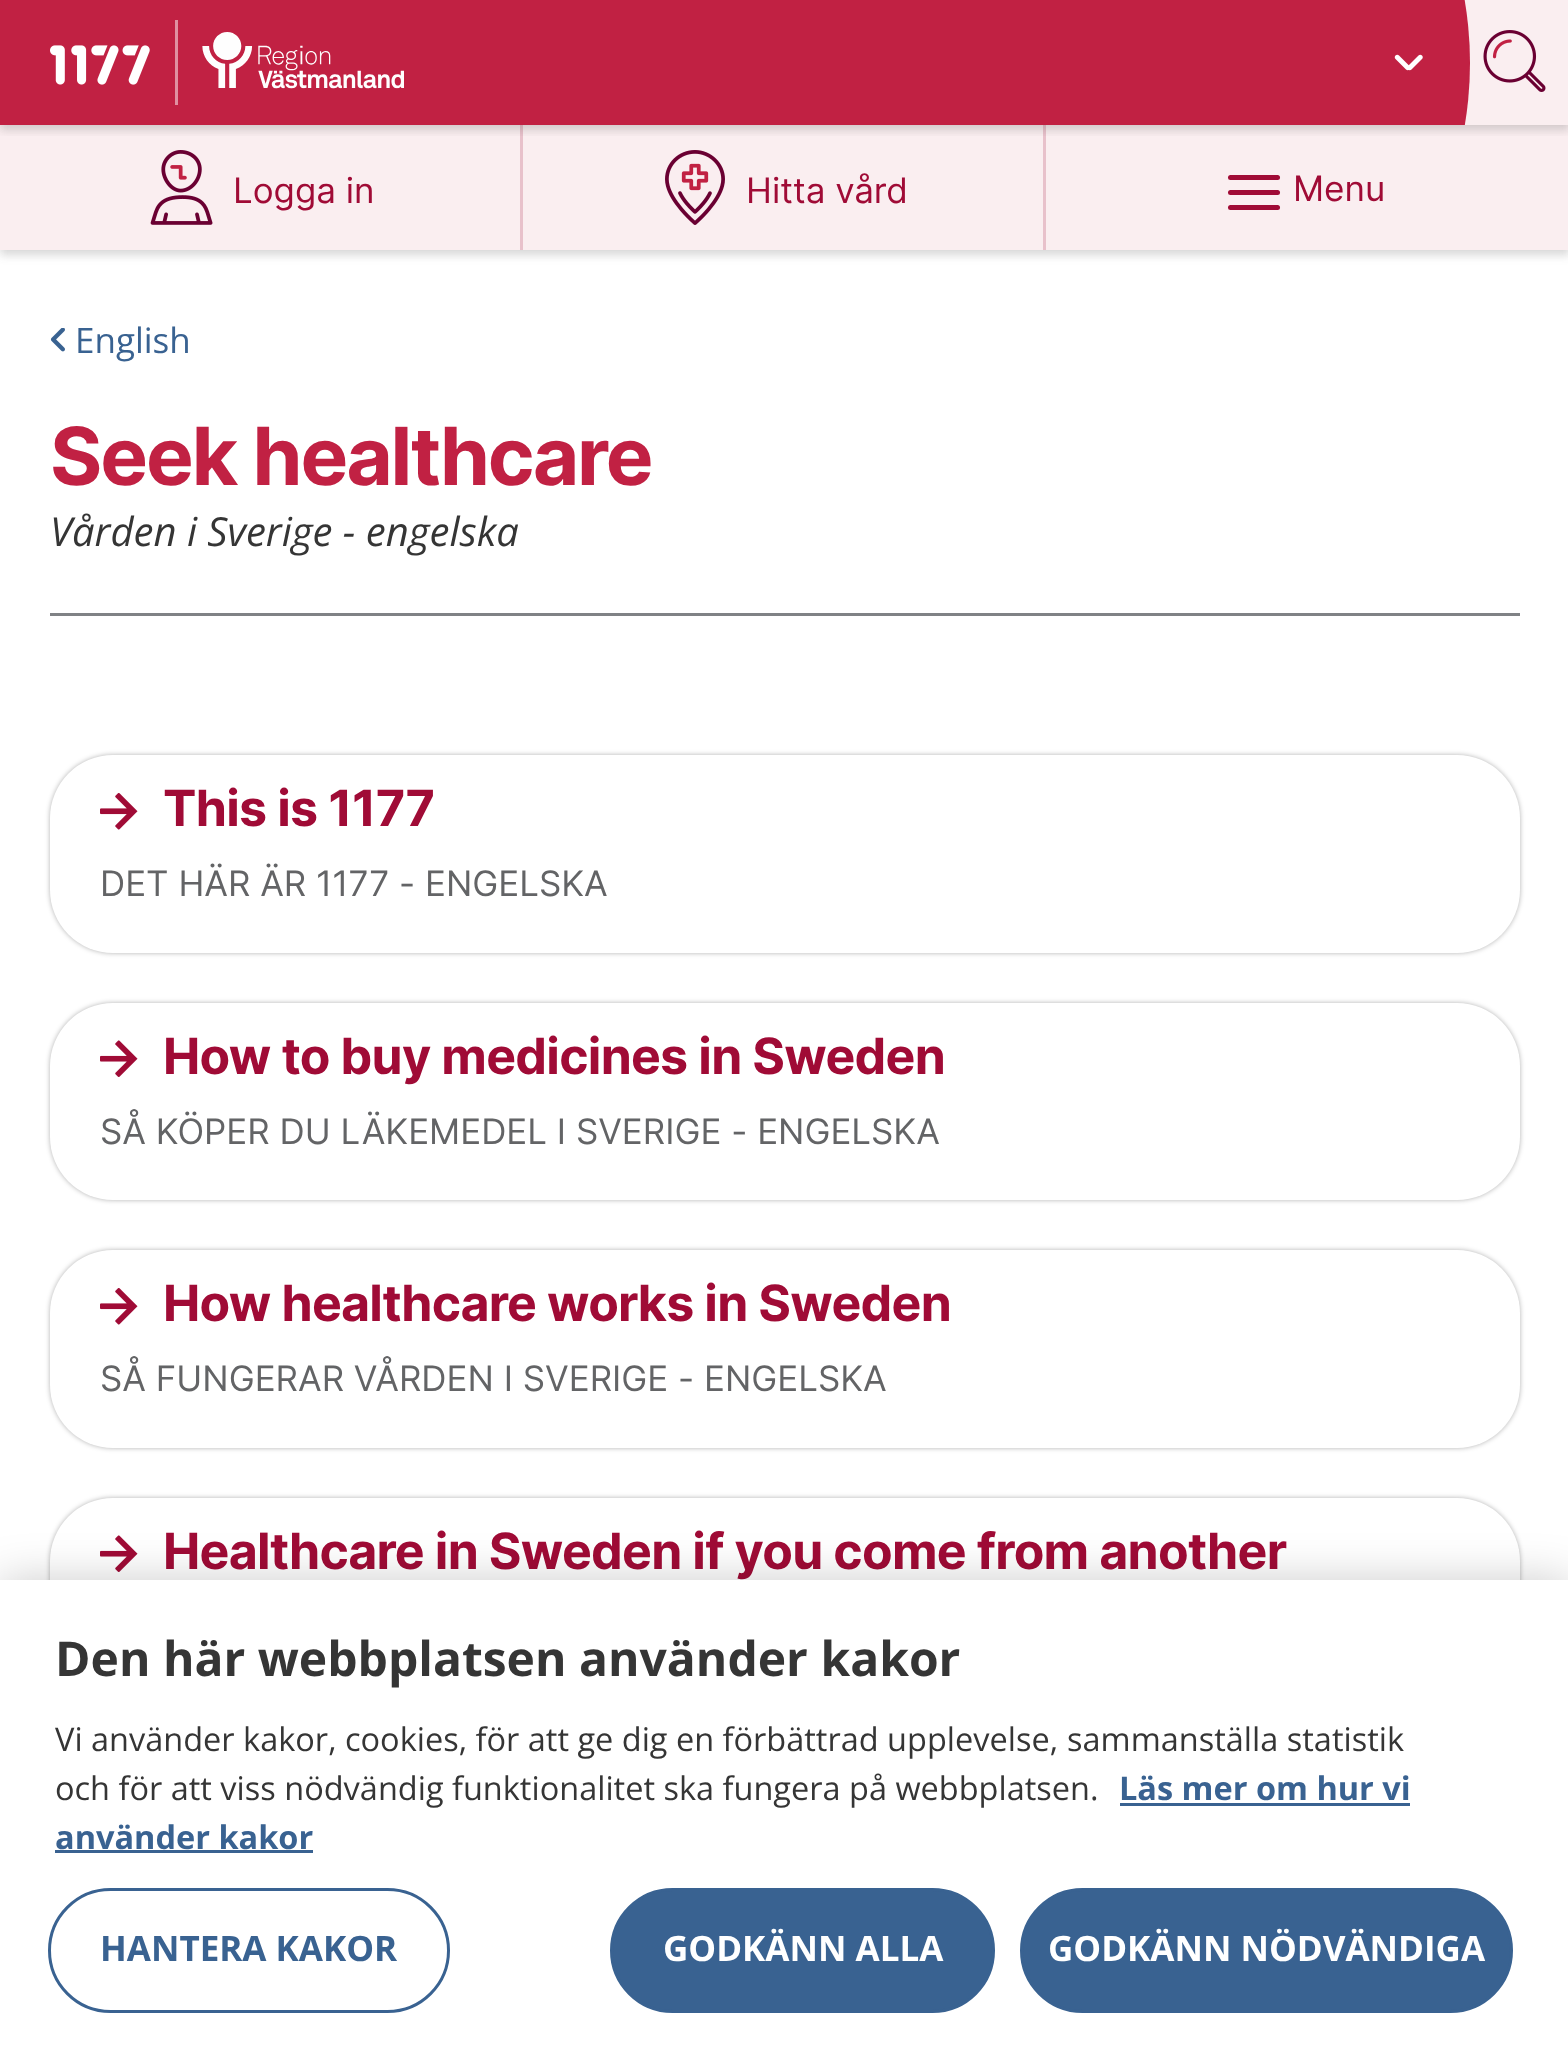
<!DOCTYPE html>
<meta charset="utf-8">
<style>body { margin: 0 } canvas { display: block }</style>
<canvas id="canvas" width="1568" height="2064"></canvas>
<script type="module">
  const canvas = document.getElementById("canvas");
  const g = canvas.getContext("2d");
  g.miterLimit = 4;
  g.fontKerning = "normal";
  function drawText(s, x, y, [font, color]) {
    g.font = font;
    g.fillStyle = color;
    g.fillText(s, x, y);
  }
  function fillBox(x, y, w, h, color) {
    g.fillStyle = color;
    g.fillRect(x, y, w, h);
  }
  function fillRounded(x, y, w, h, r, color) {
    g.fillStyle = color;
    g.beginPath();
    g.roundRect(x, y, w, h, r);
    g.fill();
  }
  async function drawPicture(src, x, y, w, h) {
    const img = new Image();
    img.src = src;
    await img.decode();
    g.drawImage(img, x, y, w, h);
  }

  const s1 = ["35px Inter", "#A00B36"];
  const s2 = ["35px Open Sans", "#396291"];
  const s3 = ["bold 80px Inter", "#C12143"];
  const s4 = ["italic 40px Open Sans", "#353535"];
  const s5 = ["bold 50px Inter", "#A00B36"];
  const s6 = ["35px Inter", "#636466"];
  const s7 = ["bold 48px Open Sans", "#353535"];
  const s8 = ["32.5px Open Sans", "#353535"];
  const s9 = ["bold 32.5px Open Sans", "#396291"];
  const s10 = ["bold 35px Open Sans", "#396291"];
  const s11 = ["bold 35px Open Sans", "#FFFFFF"];

  fillBox(0, 0, 1568, 2064, "#FFFFFF");
  g.fillStyle = "rgba(53, 53, 53, 0.2)";
  g.filter = "blur(5px)";
  g.beginPath();
  g.rect(0, 5, 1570, 250);
  g.fill();
  g.filter = "none";
  fillBox(0, 0, 1568, 250, "#FAEEF0");
  fillBox(520, 125, 3, 125, "#E8C1CB");
  fillBox(1043, 125, 3, 125, "#E8C1CB");
  g.save();
  g.beginPath();
  g.rect(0, 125, 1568, 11);
  g.clip();
  g.fillStyle = "rgba(53, 53, 53, 0.2)";
  g.filter = "blur(5px)";
  g.beginPath();
  g.rect(0, 5, 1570, 125);
  g.fill();
  g.filter = "none";
  g.restore();
  fillBox(0, 0, 1445, 125, "#C12143");
  await drawPicture("pic1.png", 50, 45, 100, 40);
  fillBox(175, 20, 3, 85, "#E090A1");
  await drawPicture("pic2.png", 202, 32, 202, 57);
  await drawPicture("pic5.png", 665, 150, 60, 75);
  drawText("Hitta vård", 746, 203, s1);
  fillRounded(1228, 190, 52, 5, 2.5, "#A00B36");
  fillRounded(1228, 175, 52, 5, 2.5, "#A00B36");
  fillRounded(1228, 205, 52, 5, 2.5, "#A00B36");
  drawText("Menu", 1293, 201, s1);
  g.save();
  g.beginPath();
  g.rect(1445, 0, 25, 125);
  g.clip();
  g.fillStyle = "#C12143";
  g.beginPath();
  g.arc(1095, 63, 375, 0, Math.PI * 2);
  g.fill();
  g.restore();
  g.fillStyle = "#FFFFFF";
  g.beginPath();
  g.moveTo(1409.5, 69.5);
  g.bezierCurveTo(1408.5, 70.5, 1407, 70.5, 1406, 69.5);
  g.lineTo(1395.5, 59);
  g.bezierCurveTo(1394.5, 58, 1394.5, 56.5, 1395.5, 55.5);
  g.bezierCurveTo(1396.5, 54.5, 1398, 54.5, 1399, 55.5);
  g.lineTo(1409.5, 66);
  g.bezierCurveTo(1410.5, 67, 1410.5, 68.5, 1409.5, 69.5);
  g.closePath();
  g.fill();
  g.beginPath();
  g.moveTo(1408, 69.5);
  g.bezierCurveTo(1407, 68.5, 1407, 67, 1408, 66);
  g.lineTo(1418.5, 55.5);
  g.bezierCurveTo(1419.5, 54.5, 1421, 54.5, 1422, 55.5);
  g.bezierCurveTo(1423, 56.5, 1423, 58, 1422, 59);
  g.lineTo(1411.5, 69.5);
  g.bezierCurveTo(1410.5, 70.5, 1409, 70.5, 1408, 69.5);
  g.closePath();
  g.fill();
  await drawPicture("pic3.png", 1483, 30, 63, 62);
  await drawPicture("pic4.png", 150, 150, 63, 75);
  drawText("Logga in", 233, 203, s1);
  await drawPicture("pic6.png", 50, 328, 15, 24);
  drawText("English", 75, 353, s2);
  g.letterSpacing = "-2.1px";
  drawText("Seek healthcare", 50, 485, s3);
  g.letterSpacing = "0px";
  drawText("Vården i Sverige - engelska", 50, 546, s4);
  fillBox(50, 613, 1470, 3, "#808285");
  g.fillStyle = "rgba(0, 0, 0, 0.3)";
  g.filter = "blur(2.5px)";
  g.beginPath();
  g.roundRect(50, 755, 1470, 198, 63);
  g.fill();
  g.filter = "none";
  fillRounded(50, 755, 1470, 198, 63, "#FFFFFF");
  await drawPicture("pic7.png", 100, 793, 38, 37);
  g.letterSpacing = "-0.75px";
  drawText("This is 1177", 163, 826, s5);
  g.letterSpacing = "0px";
  drawText("DET HÄR ÄR 1177 - ENGELSKA", 100, 896, s6);
  g.fillStyle = "rgba(0, 0, 0, 0.3)";
  g.filter = "blur(2.5px)";
  g.beginPath();
  g.roundRect(50, 1003, 1470, 197, 63);
  g.fill();
  g.filter = "none";
  fillRounded(50, 1003, 1470, 197, 63, "#FFFFFF");
  await drawPicture("pic8.png", 100, 1040, 38, 37);
  g.letterSpacing = "-0.75px";
  drawText("How to buy medicines in Sweden", 163, 1074, s5);
  g.letterSpacing = "0px";
  drawText("SÅ KÖPER DU LÄKEMEDEL I SVERIGE - ENGELSKA", 100, 1144, s6);
  g.fillStyle = "rgba(0, 0, 0, 0.3)";
  g.filter = "blur(2.5px)";
  g.beginPath();
  g.roundRect(50, 1250, 1470, 198, 63);
  g.fill();
  g.filter = "none";
  fillRounded(50, 1250, 1470, 198, 63, "#FFFFFF");
  await drawPicture("pic7.png", 100, 1288, 38, 37);
  g.letterSpacing = "-0.75px";
  drawText("How healthcare works in Sweden", 163, 1321, s5);
  g.letterSpacing = "0px";
  drawText("SÅ FUNGERAR VÅRDEN I SVERIGE - ENGELSKA", 100, 1391, s6);
  g.fillStyle = "rgba(0, 0, 0, 0.3)";
  g.filter = "blur(2.5px)";
  g.beginPath();
  g.roundRect(50, 1498, 1470, 260, 63);
  g.fill();
  g.filter = "none";
  fillRounded(50, 1498, 1470, 260, 63, "#FFFFFF");
  await drawPicture("pic8.png", 100, 1535, 38, 37);
  g.letterSpacing = "-0.75px";
  drawText("Healthcare in Sweden if you come from another", 163, 1569, s5);
  g.fillStyle = "rgba(0, 0, 0, 0.2)";
  g.filter = "blur(22.5px)";
  g.beginPath();
  g.rect(0, 1580, 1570, 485);
  g.fill();
  g.filter = "none";
  fillBox(0, 1580, 1568, 484, "#FFFFFF");
  g.letterSpacing = "0px";
  drawText("Den här webbplatsen använder kakor", 55, 1676, s7);
  drawText("Vi använder kakor, cookies, för att ge dig en förbättrad upplevelse,", 55, 1751, s8);
  drawText("sammanställa statistik", 1067, 1751, s8);
  drawText("och för att viss nödvändig funktionalitet ska fungera på webbplatsen.", 55, 1800, s8);
  drawText("Läs mer om hur vi", 1119, 1800, s9);
  fillBox(1120, 1803, 290, 3, "#396291");
  drawText("använder kakor", 55, 1849, s9);
  fillBox(55, 1850, 258, 3, "#396291");
  g.beginPath();
  g.roundRect(49.5, 1889.5, 399, 122, 61);
  g.strokeStyle = "#396291";
  g.lineWidth = 3;
  g.stroke();
  drawText("HANTERA KAKOR", 100, 1961, s10);
  g.beginPath();
  g.roundRect(611.5, 1889.5, 382, 122, 61);
  g.fill();
  g.stroke();
  drawText("GODKÄNN ALLA", 663, 1961, s11);
  g.fillStyle = "#396291";
  g.beginPath();
  g.roundRect(1021.5, 1889.5, 490, 122, 61);
  g.fill();
  g.stroke();
  drawText("GODKÄNN NÖDVÄNDIGA", 1048, 1961, s11);
</script>
